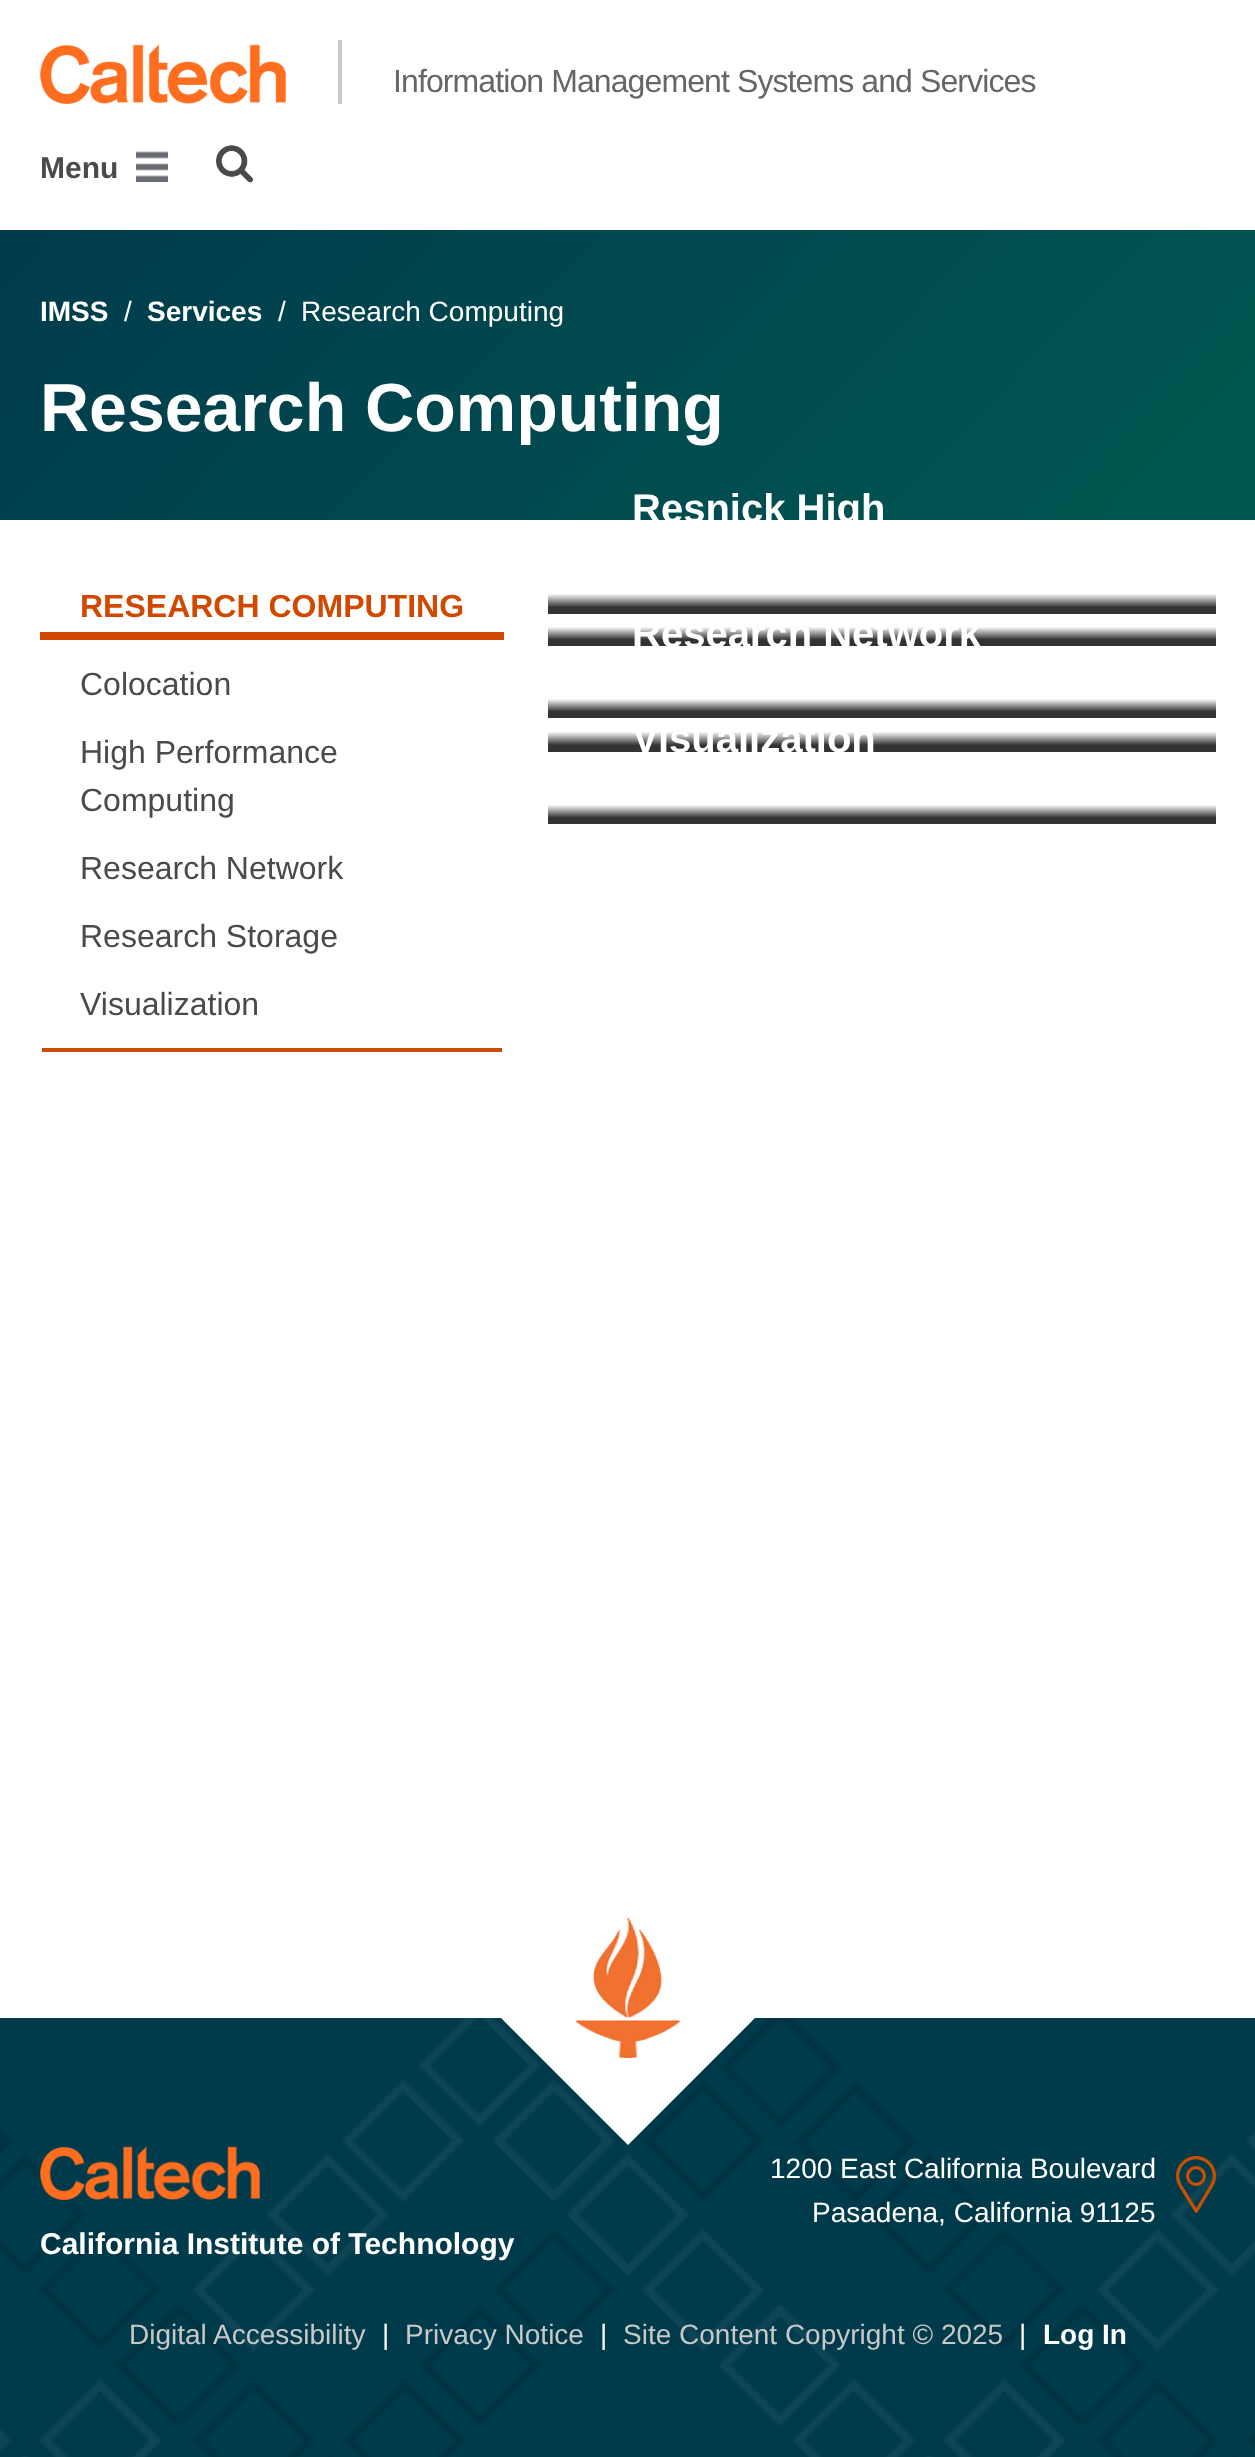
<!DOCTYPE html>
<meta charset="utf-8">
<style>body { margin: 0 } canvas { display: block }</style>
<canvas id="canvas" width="1255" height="2457"></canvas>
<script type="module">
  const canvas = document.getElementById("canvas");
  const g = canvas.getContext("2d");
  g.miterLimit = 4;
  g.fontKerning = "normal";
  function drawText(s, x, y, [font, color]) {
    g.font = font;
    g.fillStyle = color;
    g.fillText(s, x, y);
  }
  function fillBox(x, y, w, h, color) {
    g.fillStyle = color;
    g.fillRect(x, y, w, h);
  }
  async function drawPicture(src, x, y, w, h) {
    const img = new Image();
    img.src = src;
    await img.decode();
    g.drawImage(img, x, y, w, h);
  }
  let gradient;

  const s1 = ["32px Liberation Sans", "#666666"];
  const s2 = ["bold 30px Liberation Sans", "#4A4A4A"];
  const s3 = ["bold 28px Liberation Sans", "#FFFFFF"];
  const s4 = ["28px Liberation Sans", "#FFFFFF"];
  const s5 = ["bold 68px Liberation Sans", "#FFFFFF"];
  const s6 = ["bold 32px Liberation Sans", "#D14900"];
  const s7 = ["32px Liberation Sans", "#4A4A4A"];
  const s8 = ["bold 40px Liberation Sans", "#FFFFFF"];
  const s9 = ["bold 30px Liberation Sans", "#FFFFFF"];
  const s10 = ["28px Liberation Sans", "#C8C8C8"];

  fillBox(0, 0, 1255, 2457, "#FFFFFF");
  await drawPicture("pic1.png", 40, 44, 246, 60);
  fillBox(338, 40, 4, 64, "#C8C8C8");
  g.letterSpacing = "-0.9px";
  drawText("Information Management Systems and Services", 393, 92, s1);
  g.letterSpacing = "0px";
  drawText("Menu", 40, 178, s2);
  await drawPicture("pic2.png", 136, 151, 32, 31);
  await drawPicture("pic3.png", 216, 145, 38, 38);
  gradient = g.createLinearGradient(231, -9, 1025, 759);
  gradient.addColorStop(0, "#003B4C");
  gradient.addColorStop(1, "#005851");
  g.fillStyle = gradient;
  g.fillRect(0, 230, 1255, 290);
  drawText("IMSS", 40, 321, s3);
  drawText("/", 124, 321, s4);
  drawText("Services", 147, 321, s3);
  drawText("/", 278, 321, s4);
  drawText("Research Computing", 301, 321, s4);
  drawText("Research Computing", 40, 431, s5);
  fillBox(42, 1048, 460, 4, "#C75000");
  fillBox(40, 632, 464, 8, "#D14900");
  drawText("RESEARCH COMPUTING", 80, 617, s6);
  drawText("Colocation", 80, 695, s7);
  drawText("High Performance", 80, 763, s7);
  drawText("Computing", 80, 811, s7);
  drawText("Research Network", 80, 879, s7);
  drawText("Research Storage", 80, 947, s7);
  drawText("Visualization", 80, 1015, s7);
  drawText("Resnick High", 632, 522, s8);
  gradient = g.createLinearGradient(882, 614, 882, 646);
  gradient.addColorStop(0, "#FFFFFF");
  gradient.addColorStop(0.4, "#FFFFFF");
  gradient.addColorStop(0.8, "#333333");
  g.fillStyle = gradient;
  g.fillRect(548, 627, 668, 19);
  gradient = g.createLinearGradient(882, 580, 882, 614);
  gradient.addColorStop(0, "#FFFFFF");
  gradient.addColorStop(0.4, "#FFFFFF");
  gradient.addColorStop(0.8, "#333333");
  g.fillStyle = gradient;
  g.fillRect(548, 594, 668, 20);
  drawText("Research Network", 632, 647, s8);
  gradient = g.createLinearGradient(882, 686, 882, 718);
  gradient.addColorStop(0, "#FFFFFF");
  gradient.addColorStop(0.4, "#FFFFFF");
  gradient.addColorStop(0.8, "#333333");
  g.fillStyle = gradient;
  g.fillRect(548, 699, 668, 19);
  gradient = g.createLinearGradient(882, 718, 882, 752);
  gradient.addColorStop(0, "#FFFFFF");
  gradient.addColorStop(0.4, "#FFFFFF");
  gradient.addColorStop(0.8, "#333333");
  g.fillStyle = gradient;
  g.fillRect(548, 732, 668, 20);
  drawText("Visualization", 632, 752, s8);
  gradient = g.createLinearGradient(882, 792, 882, 824);
  gradient.addColorStop(0, "#FFFFFF");
  gradient.addColorStop(0.4, "#FFFFFF");
  gradient.addColorStop(0.8, "#333333");
  g.fillStyle = gradient;
  g.fillRect(548, 805, 668, 19);
  fillBox(0, 2018, 1255, 439, "#003B4C");
  await drawPicture("pic4.png", 0, 2018, 1255, 439);
  g.fillStyle = "#FFFFFF";
  g.beginPath();
  g.moveTo(628, 1891);
  g.lineTo(755, 2018);
  g.lineTo(628, 2145);
  g.lineTo(501, 2018);
  g.closePath();
  g.fill();
  await drawPicture("pic5.png", 576, 1918, 104, 140);
  drawText("1200 East California Boulevard", 770, 2178, s4);
  await drawPicture("pic6.png", 1176, 2156, 40, 58);
  drawText("Pasadena, California 91125", 812, 2222, s4);
  await drawPicture("pic7.png", 40, 2146, 220, 54);
  drawText("California Institute of Technology", 40, 2254, s9);
  drawText("Digital Accessibility", 129, 2344, s10);
  drawText("|", 382, 2344, s4);
  drawText("Privacy Notice", 405, 2344, s10);
  drawText("|", 600, 2344, s4);
  drawText("Site Content Copyright © 2025", 623, 2344, s10);
  drawText("|", 1019, 2344, s4);
  drawText("Log In", 1043, 2344, s3);
</script>
